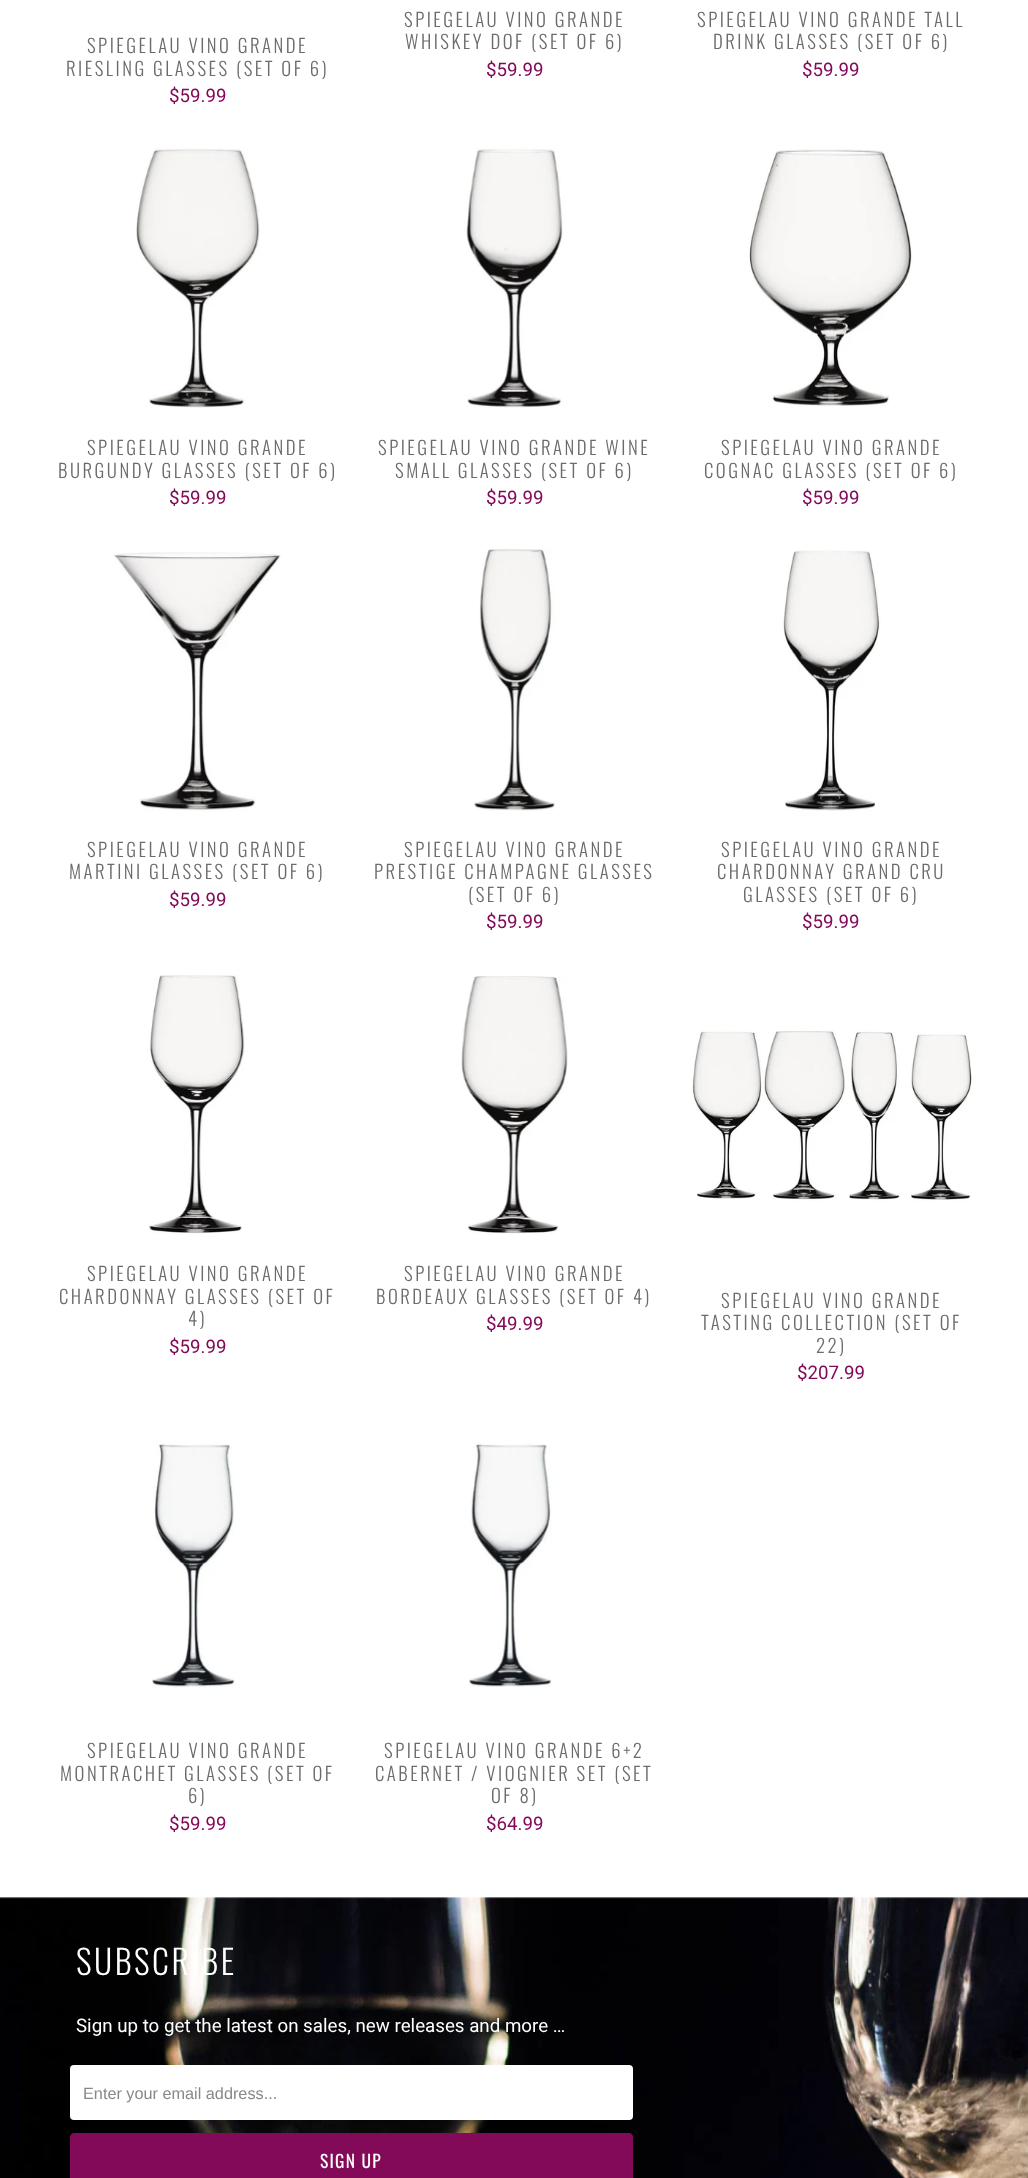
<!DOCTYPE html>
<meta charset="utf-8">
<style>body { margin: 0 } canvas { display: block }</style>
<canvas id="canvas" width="1028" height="2178"></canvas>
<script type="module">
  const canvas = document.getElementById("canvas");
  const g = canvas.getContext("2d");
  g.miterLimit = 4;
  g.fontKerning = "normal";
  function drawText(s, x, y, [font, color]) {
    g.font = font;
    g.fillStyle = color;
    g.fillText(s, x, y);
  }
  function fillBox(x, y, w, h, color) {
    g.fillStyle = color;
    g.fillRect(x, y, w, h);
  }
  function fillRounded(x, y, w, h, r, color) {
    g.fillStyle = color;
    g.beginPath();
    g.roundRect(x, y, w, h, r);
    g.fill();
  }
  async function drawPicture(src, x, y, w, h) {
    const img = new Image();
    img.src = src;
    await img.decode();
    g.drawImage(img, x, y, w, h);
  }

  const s1 = ["300 18.75px Oswald", "#6B6B6B"];
  const s2 = ["18.75px Roboto", "#830A59"];
  const s3 = ["300 33.75px Oswald", "#FFFFFF"];
  const s4 = ["18.75px Roboto", "#FFFFFF"];
  const s5 = ["16.25px Liberation Sans", "#888888"];
  const s6 = ["17.5px Oswald", "#FFFFFF"];

  fillBox(0, 0, 1028, 2178, "#FFFFFF");
  g.letterSpacing = "2.5px";
  drawText("SPIEGELAU VINO GRANDE", 87, 53, s1);
  drawText("RIESLING GLASSES (SET OF 6)", 66, 76, s1);
  g.letterSpacing = "0px";
  drawText("$59.99", 169, 102, s2);
  g.letterSpacing = "2.5px";
  drawText("SPIEGELAU VINO GRANDE", 404, 27, s1);
  drawText("WHISKEY DOF (SET OF 6)", 405, 49, s1);
  g.letterSpacing = "0px";
  drawText("$59.99", 486, 76, s2);
  g.letterSpacing = "2.5px";
  drawText("SPIEGELAU VINO GRANDE TALL", 697, 27, s1);
  drawText("DRINK GLASSES (SET OF 6)", 713, 49, s1);
  g.letterSpacing = "0px";
  drawText("$59.99", 802, 76, s2);
  await drawPicture("pic1.png", 136, 148, 124, 260);
  g.letterSpacing = "2.5px";
  drawText("SPIEGELAU VINO GRANDE", 87, 455, s1);
  drawText("BURGUNDY GLASSES (SET OF 6)", 58, 478, s1);
  g.letterSpacing = "0px";
  drawText("$59.99", 169, 504, s2);
  await drawPicture("pic2.png", 466, 148, 98, 260);
  g.letterSpacing = "2.5px";
  drawText("SPIEGELAU VINO GRANDE WINE", 378, 455, s1);
  drawText("SMALL GLASSES (SET OF 6)", 395, 478, s1);
  g.letterSpacing = "0px";
  drawText("$59.99", 486, 504, s2);
  await drawPicture("pic3.png", 749, 149, 164, 257);
  g.letterSpacing = "2.5px";
  drawText("SPIEGELAU VINO GRANDE", 721, 455, s1);
  drawText("COGNAC GLASSES (SET OF 6)", 704, 478, s1);
  g.letterSpacing = "0px";
  drawText("$59.99", 802, 504, s2);
  await drawPicture("pic4.png", 114, 552, 167, 259);
  g.letterSpacing = "2.5px";
  drawText("SPIEGELAU VINO GRANDE", 87, 857, s1);
  drawText("MARTINI GLASSES (SET OF 6)", 69, 879, s1);
  g.letterSpacing = "0px";
  drawText("$59.99", 169, 906, s2);
  await drawPicture("pic5.png", 474, 549, 81, 262);
  g.letterSpacing = "2.5px";
  drawText("SPIEGELAU VINO GRANDE", 404, 857, s1);
  drawText("PRESTIGE CHAMPAGNE GLASSES", 374, 879, s1);
  drawText("(SET OF 6)", 468, 902, s1);
  g.letterSpacing = "0px";
  drawText("$59.99", 486, 928, s2);
  await drawPicture("pic6.png", 782, 550, 99, 261);
  g.letterSpacing = "2.5px";
  drawText("SPIEGELAU VINO GRANDE", 721, 857, s1);
  drawText("CHARDONNAY GRAND CRU", 717, 879, s1);
  drawText("GLASSES (SET OF 6)", 743, 902, s1);
  g.letterSpacing = "0px";
  drawText("$59.99", 802, 928, s2);
  await drawPicture("pic7.png", 149, 974, 96, 260);
  g.letterSpacing = "2.5px";
  drawText("SPIEGELAU VINO GRANDE", 87, 1281, s1);
  drawText("CHARDONNAY GLASSES (SET OF", 59, 1304, s1);
  drawText("4)", 188, 1326, s1);
  g.letterSpacing = "0px";
  drawText("$59.99", 169, 1353, s2);
  await drawPicture("pic8.png", 461, 976, 107, 258);
  g.letterSpacing = "2.5px";
  drawText("SPIEGELAU VINO GRANDE", 404, 1281, s1);
  drawText("BORDEAUX GLASSES (SET OF 4)", 376, 1304, s1);
  g.letterSpacing = "0px";
  drawText("$49.99", 486, 1330, s2);
  await drawPicture("pic9.png", 691, 1030, 281, 172);
  g.letterSpacing = "2.5px";
  drawText("SPIEGELAU VINO GRANDE", 721, 1308, s1);
  drawText("TASTING COLLECTION (SET OF", 701, 1330, s1);
  drawText("22)", 816, 1353, s1);
  g.letterSpacing = "0px";
  drawText("$207.99", 797, 1379, s2);
  await drawPicture("pic10.png", 152, 1444, 83, 244);
  g.letterSpacing = "2.5px";
  drawText("SPIEGELAU VINO GRANDE", 87, 1758, s1);
  drawText("MONTRACHET GLASSES (SET OF", 60, 1781, s1);
  drawText("6)", 188, 1803, s1);
  g.letterSpacing = "0px";
  drawText("$59.99", 169, 1830, s2);
  await drawPicture("pic11.png", 469, 1444, 84, 243);
  g.letterSpacing = "2.5px";
  drawText("SPIEGELAU VINO GRANDE 6+2", 384, 1758, s1);
  drawText("CABERNET / VIOGNIER SET (SET", 375, 1781, s1);
  drawText("OF 8)", 491, 1803, s1);
  g.letterSpacing = "0px";
  drawText("$64.99", 486, 1830, s2);
  await drawPicture("pic12.png", 0, 1897, 1028, 281);
  g.letterSpacing = "2.5px";
  drawText("SUBSCRIBE", 76, 1975, s3);
  g.letterSpacing = "0px";
  drawText("Sign up to get the latest on sales, new releases and more …", 76, 2032, s4);
  fillRounded(70, 2065, 563, 55, 4, "#FFFFFF");
  drawText("Enter your email address...", 83, 2099, s5);
  g.fillStyle = "#830A59";
  g.beginPath();
  g.roundRect(70.5, 2133.5, 562, 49, 3.5);
  g.fill();
  g.strokeStyle = "#830A59";
  g.stroke();
  g.letterSpacing = "1.25px";
  drawText("SIGN UP", 320, 2168, s6);
</script>
